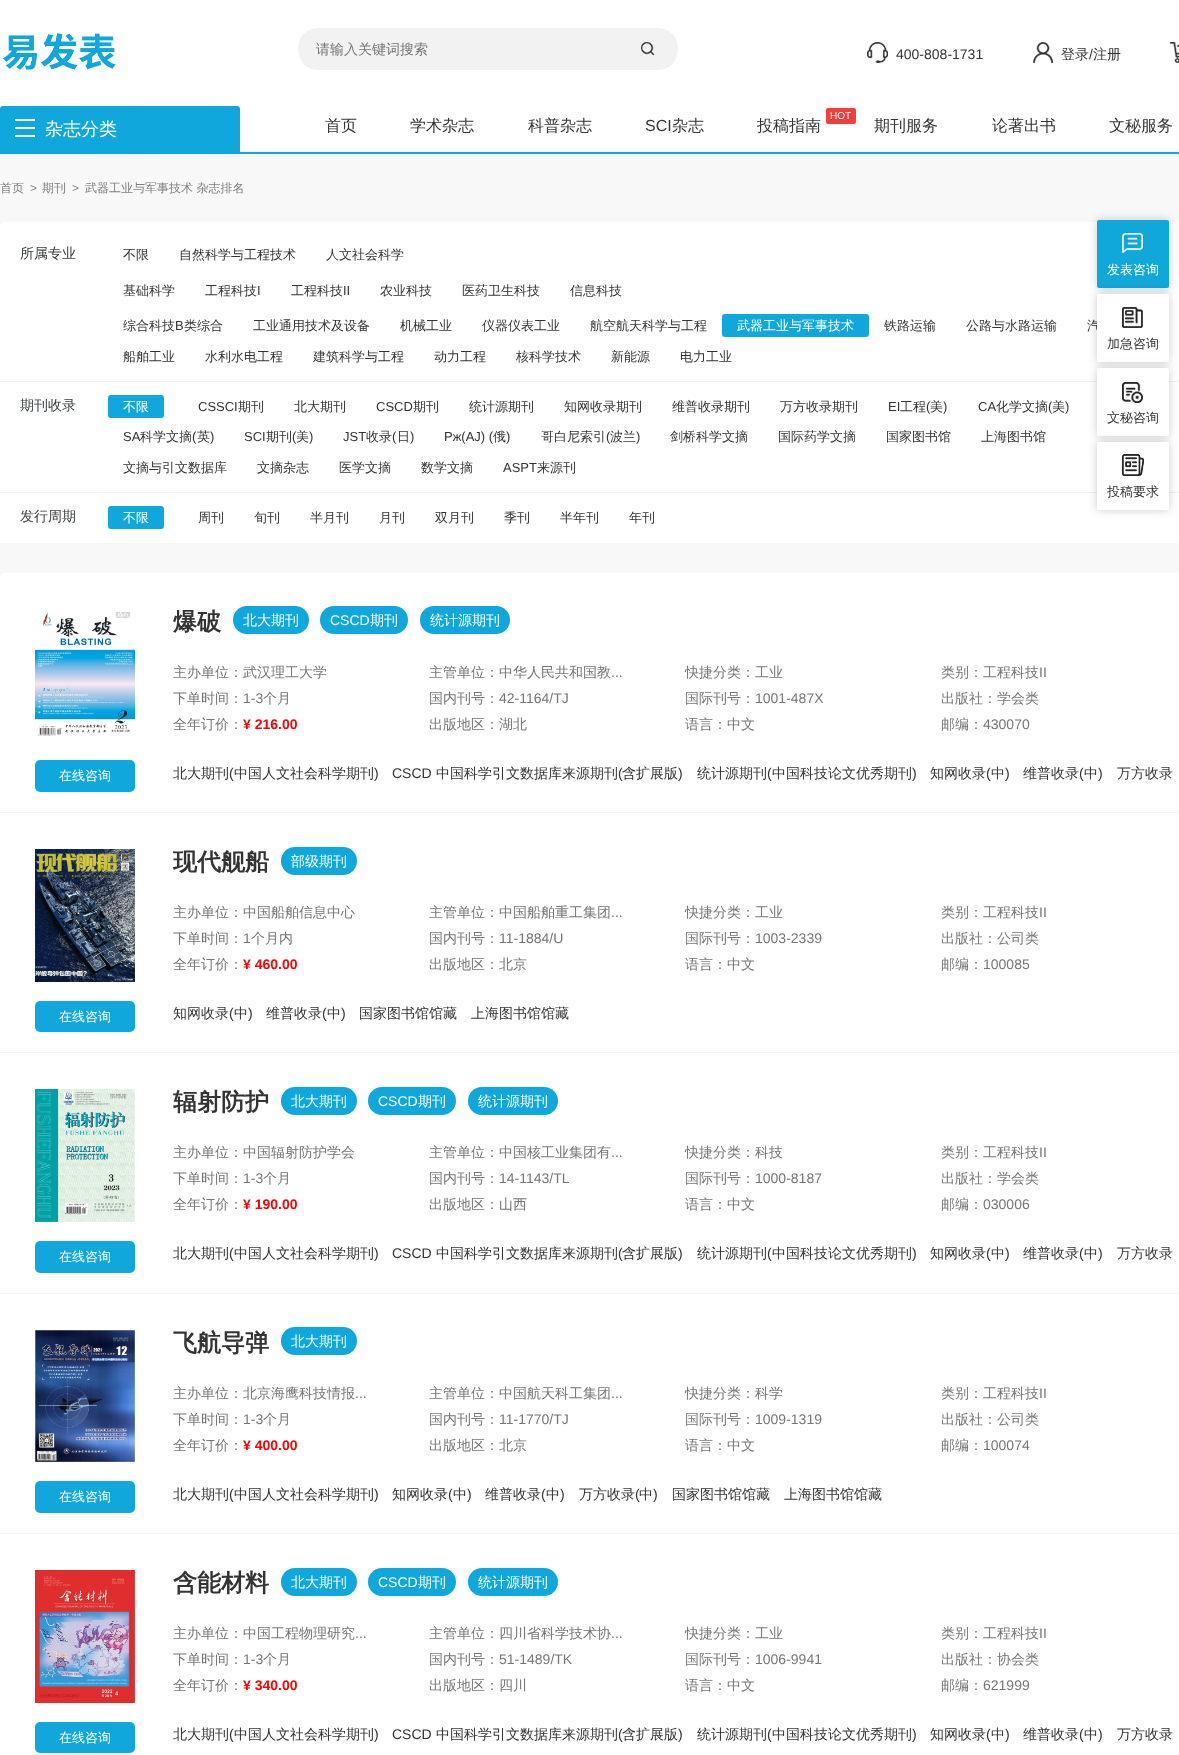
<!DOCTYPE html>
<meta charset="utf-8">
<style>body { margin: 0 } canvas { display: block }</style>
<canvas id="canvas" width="1179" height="1755"></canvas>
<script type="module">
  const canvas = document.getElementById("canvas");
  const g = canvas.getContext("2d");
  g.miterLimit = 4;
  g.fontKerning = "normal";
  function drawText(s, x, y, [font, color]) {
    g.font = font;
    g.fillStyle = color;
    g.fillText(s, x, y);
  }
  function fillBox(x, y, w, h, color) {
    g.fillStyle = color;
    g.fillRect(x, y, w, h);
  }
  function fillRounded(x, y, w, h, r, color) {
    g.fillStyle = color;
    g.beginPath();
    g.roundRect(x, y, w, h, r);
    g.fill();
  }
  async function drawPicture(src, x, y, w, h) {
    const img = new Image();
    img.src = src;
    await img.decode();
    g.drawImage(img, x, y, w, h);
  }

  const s1 = ["500 14px WenQuanYi Zen Hei", "#757575"];
  const s2 = ["14px Liberation Sans", "#333333"];
  const s3 = ["500 14px WenQuanYi Zen Hei", "#333333"];
  const s4 = ["500 18px WenQuanYi Zen Hei", "#FFFFFF"];
  const s5 = ["500 16px WenQuanYi Zen Hei", "#333333"];
  const s6 = ["16px Liberation Sans", "#333333"];
  const s7 = ["10px Liberation Sans", "#FFFFFF"];
  const s8 = ["500 12px WenQuanYi Zen Hei", "#7D7D7D"];
  const s9 = ["12px Liberation Sans", "#7D7D7D"];
  const s10 = ["500 14px WenQuanYi Zen Hei", "#394043"];
  const s11 = ["500 13px WenQuanYi Zen Hei", "#333333"];
  const s12 = ["13px Liberation Sans", "#333333"];
  const s13 = ["500 13px WenQuanYi Zen Hei", "#FFFFFF"];
  const s14 = ["bold 24px WenQuanYi Zen Hei", "#333333"];
  const s15 = ["500 14px WenQuanYi Zen Hei", "#FFFFFF"];
  const s16 = ["14px Liberation Sans", "#FFFFFF"];
  const s17 = ["14px Liberation Sans", "#757575"];
  const s18 = ["bold 14px Liberation Sans", "#FF0000"];

  fillBox(0, 0, 1179, 1755, "#FFFFFF");
  await drawPicture("pic1.png", 2, 33, 114, 37);
  g.fillStyle = "#F2F2F2";
  g.beginPath();
  g.roundRect(298, 28, 320, 42, [20, 0, 0, 20]);
  g.fill();
  drawText("请输入关键词搜索", 316, 54, s1);
  g.fillStyle = "#F2F2F2";
  g.beginPath();
  g.roundRect(618, 28, 60, 42, [0, 20, 20, 0]);
  g.fill();
  await drawPicture("pic2.png", 641, 42, 14, 14);
  await drawPicture("pic3.png", 867, 42, 21, 21);
  drawText("400-808-1731", 896, 59, s2);
  await drawPicture("pic4.png", 1033, 42, 20, 21);
  drawText("登录", 1061, 59, s3);
  drawText("/", 1089, 59, s2);
  drawText("注册", 1093, 59, s3);
  await drawPicture("pic5.png", 1170, 42, 9, 21);
  fillBox(0, 152, 1179, 2, "#10A8DC");
  g.beginPath();
  g.roundRect(0, 106, 240, 46, [3, 3, 0, 0]);
  g.fill();
  await drawPicture("pic6.png", 15, 119, 20, 18);
  drawText("杂志分类", 45, 135, s4);
  drawText("首页", 325, 131, s5);
  drawText("学术杂志", 410, 131, s5);
  drawText("科普杂志", 528, 131, s5);
  drawText("SCI", 645, 131, s6);
  drawText("杂志", 672, 131, s5);
  fillRounded(826, 108, 30, 16, 2, "#F33E3E");
  drawText("HOT", 830, 119, s7);
  drawText("投稿指南", 757, 131, s5);
  drawText("期刊服务", 874, 131, s5);
  drawText("论著出书", 992, 131, s5);
  drawText("文秘服务", 1109, 131, s5);
  fillBox(0, 154, 1179, 419, "#F8F8F8");
  drawText("首页", 0, 192, s8);
  drawText(">", 30, 192, s9);
  drawText("期刊", 42, 192, s8);
  drawText(">", 72, 192, s9);
  drawText("武器工业与军事技术 杂志排名", 85, 192, s8);
  fillRounded(0, 222, 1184, 321, 5, "#FFFFFF");
  fillBox(0, 540, 3, 3, "#FFFFFF");
  fillBox(0, 381, 1179, 1, "#F1F1F1");
  drawText("所属专业", 20, 258, s10);
  drawText("不限", 123, 259, s11);
  drawText("自然科学与工程技术", 179, 259, s11);
  drawText("人文社会科学", 326, 259, s11);
  drawText("基础科学", 123, 295, s11);
  drawText("工程科技", 205, 295, s11);
  drawText("I", 257, 295, s12);
  drawText("工程科技", 291, 295, s11);
  drawText("II", 343, 295, s12);
  drawText("农业科技", 380, 295, s11);
  drawText("医药卫生科技", 462, 295, s11);
  drawText("信息科技", 570, 295, s11);
  drawText("综合科技", 123, 330, s11);
  drawText("B", 175, 330, s12);
  drawText("类综合", 184, 330, s11);
  drawText("工业通用技术及设备", 253, 330, s11);
  drawText("机械工业", 400, 330, s11);
  drawText("仪器仪表工业", 482, 330, s11);
  drawText("航空航天科学与工程", 590, 330, s11);
  fillRounded(722, 314, 147, 23, 3, "#10A8DC");
  drawText("武器工业与军事技术", 737, 330, s13);
  drawText("铁路运输", 884, 330, s11);
  drawText("公路与水路运输", 966, 330, s11);
  drawText("汽", 1087, 330, s11);
  drawText("船舶工业", 123, 361, s11);
  drawText("水利水电工程", 205, 361, s11);
  drawText("建筑科学与工程", 313, 361, s11);
  drawText("动力工程", 434, 361, s11);
  drawText("核科学技术", 516, 361, s11);
  drawText("新能源", 611, 361, s11);
  drawText("电力工业", 680, 361, s11);
  fillBox(0, 492, 1179, 1, "#F1F1F1");
  drawText("期刊收录", 20, 410, s10);
  fillRounded(108, 395, 56, 23, 3, "#10A8DC");
  drawText("不限", 123, 411, s13);
  drawText("CSSCI", 198, 411, s12);
  drawText("期刊", 238, 411, s11);
  drawText("北大期刊", 294, 411, s11);
  drawText("CSCD", 376, 411, s12);
  drawText("期刊", 413, 411, s11);
  drawText("统计源期刊", 469, 411, s11);
  drawText("知网收录期刊", 564, 411, s11);
  drawText("维普收录期刊", 672, 411, s11);
  drawText("万方收录期刊", 780, 411, s11);
  drawText("EI", 888, 411, s12);
  drawText("工程", 900, 411, s11);
  drawText("(", 926, 411, s12);
  drawText("美", 930, 411, s11);
  drawText(")", 943, 411, s12);
  drawText("CA", 978, 411, s12);
  drawText("化学文摘", 996, 411, s11);
  drawText("(", 1048, 411, s12);
  drawText("美", 1052, 411, s11);
  drawText(")", 1065, 411, s12);
  drawText("SA", 123, 441, s12);
  drawText("科学文摘", 140, 441, s11);
  drawText("(", 192, 441, s12);
  drawText("英", 197, 441, s11);
  drawText(")", 210, 441, s12);
  drawText("SCI", 244, 441, s12);
  drawText("期刊", 266, 441, s11);
  drawText("(", 292, 441, s12);
  drawText("美", 296, 441, s11);
  drawText(")", 309, 441, s12);
  drawText("JST", 343, 441, s12);
  drawText("收录", 366, 441, s11);
  drawText("(", 392, 441, s12);
  drawText("日", 397, 441, s11);
  drawText(")", 410, 441, s12);
  drawText("Pж(AJ) (", 444, 441, s12);
  drawText("俄", 493, 441, s11);
  drawText(")", 506, 441, s12);
  drawText("哥白尼索引", 541, 441, s11);
  drawText("(", 606, 441, s12);
  drawText("波兰", 610, 441, s11);
  drawText(")", 636, 441, s12);
  drawText("剑桥科学文摘", 670, 441, s11);
  drawText("国际药学文摘", 778, 441, s11);
  drawText("国家图书馆", 886, 441, s11);
  drawText("上海图书馆", 981, 441, s11);
  drawText("文摘与引文数据库", 123, 472, s11);
  drawText("文摘杂志", 257, 472, s11);
  drawText("医学文摘", 339, 472, s11);
  drawText("数学文摘", 421, 472, s11);
  drawText("ASPT", 503, 472, s12);
  drawText("来源刊", 537, 472, s11);
  drawText("发行周期", 20, 521, s10);
  fillRounded(108, 506, 56, 23, 3, "#10A8DC");
  drawText("不限", 123, 522, s13);
  drawText("周刊", 198, 522, s11);
  drawText("旬刊", 254, 522, s11);
  drawText("半月刊", 310, 522, s11);
  drawText("月刊", 379, 522, s11);
  drawText("双月刊", 435, 522, s11);
  drawText("季刊", 504, 522, s11);
  drawText("半年刊", 560, 522, s11);
  drawText("年刊", 629, 522, s11);
  g.fillStyle = "rgba(0, 0, 0, 0.2)";
  g.filter = "blur(5px)";
  g.beginPath();
  g.roundRect(1097, 220, 72, 68, 2);
  g.fill();
  g.filter = "none";
  fillRounded(1097, 220, 72, 68, 2, "#10A7DB");
  await drawPicture("pic7.png", 1122, 233, 21, 20);
  drawText("发表咨询", 1107, 274, s13);
  g.fillStyle = "rgba(0, 0, 0, 0.2)";
  g.filter = "blur(5px)";
  g.beginPath();
  g.roundRect(1097, 294, 72, 68, 2);
  g.fill();
  g.filter = "none";
  fillRounded(1097, 294, 72, 68, 2, "#FFFFFF");
  await drawPicture("pic8.png", 1122, 307, 21, 21);
  drawText("加急咨询", 1107, 348, s11);
  g.fillStyle = "rgba(0, 0, 0, 0.2)";
  g.filter = "blur(5px)";
  g.beginPath();
  g.roundRect(1097, 368, 72, 68, 2);
  g.fill();
  g.filter = "none";
  fillRounded(1097, 368, 72, 68, 2, "#FFFFFF");
  await drawPicture("pic9.png", 1122, 382, 21, 21);
  drawText("文秘咨询", 1107, 422, s11);
  g.fillStyle = "rgba(0, 0, 0, 0.2)";
  g.filter = "blur(5px)";
  g.beginPath();
  g.roundRect(1097, 442, 72, 68, 2);
  g.fill();
  g.filter = "none";
  fillRounded(1097, 442, 72, 68, 2, "#FFFFFF");
  await drawPicture("pic10.png", 1122, 454, 22, 22);
  drawText("投稿要求", 1107, 496, s11);
  fillBox(0, 573, 5, 5, "#F8F8F8");
  g.fillStyle = "#FFFFFF";
  g.beginPath();
  g.moveTo(5, 573);
  g.lineTo(1179, 573);
  g.bezierCurveTo(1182, 573, 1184, 575, 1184, 578);
  g.lineTo(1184, 813);
  g.lineTo(0, 813);
  g.lineTo(0, 578);
  g.bezierCurveTo(0, 575, 2, 573, 5, 573);
  g.closePath();
  g.fill();
  fillBox(0, 812, 1179, 1, "#F4F4F4");
  await drawPicture("pic11.png", 35, 611, 100, 125);
  fillRounded(35, 760, 100, 32, 5, "#10A8DC");
  drawText("在线咨询", 59, 780, s13);
  drawText("爆破", 173, 630, s14);
  fillRounded(233, 606, 76, 28, 14, "#10A8DC");
  drawText("北大期刊", 243, 625, s15);
  fillRounded(320, 606, 88, 28, 14, "#10A8DC");
  drawText("CSCD", 330, 625, s16);
  drawText("期刊", 370, 625, s15);
  fillRounded(420, 606, 90, 28, 14, "#10A8DC");
  drawText("统计源期刊", 430, 625, s15);
  drawText("主办单位：武汉理工大学", 173, 677, s1);
  drawText("下单时间：", 173, 703, s1);
  drawText("1-3", 243, 703, s17);
  drawText("个月", 263, 703, s1);
  drawText("全年订价：", 173, 729, s1);
  drawText("¥ 216.00", 243, 729, s18);
  drawText("主管单位：中华人民共和国教", 429, 677, s1);
  drawText("...", 611, 677, s17);
  drawText("国内刊号：", 429, 703, s1);
  drawText("42-1164/TJ", 499, 703, s17);
  drawText("出版地区：湖北", 429, 729, s1);
  drawText("快捷分类：工业", 685, 677, s1);
  drawText("国际刊号：", 685, 703, s1);
  drawText("1001-487X", 755, 703, s17);
  drawText("语言：中文", 685, 729, s1);
  drawText("类别：工程科技", 941, 677, s1);
  drawText("II", 1039, 677, s17);
  drawText("出版社：学会类", 941, 703, s1);
  drawText("邮编：", 941, 729, s1);
  drawText("430070", 983, 729, s17);
  drawText("北大期刊", 173, 778, s3);
  drawText("(", 229, 778, s2);
  drawText("中国人文社会科学期刊", 234, 778, s3);
  drawText(")", 374, 778, s2);
  drawText("CSCD", 392, 778, s2);
  drawText("中国科学引文数据库来源期刊", 436, 778, s3);
  drawText("(", 618, 778, s2);
  drawText("含扩展版", 622, 778, s3);
  drawText(")", 678, 778, s2);
  drawText("统计源期刊", 697, 778, s3);
  drawText("(", 767, 778, s2);
  drawText("中国科技论文优秀期刊", 772, 778, s3);
  drawText(")", 912, 778, s2);
  drawText("知网收录", 930, 778, s3);
  drawText("(", 986, 778, s2);
  drawText("中", 991, 778, s3);
  drawText(")", 1005, 778, s2);
  drawText("维普收录", 1023, 778, s3);
  drawText("(", 1079, 778, s2);
  drawText("中", 1084, 778, s3);
  drawText(")", 1098, 778, s2);
  drawText("万方收录", 1117, 778, s3);
  fillBox(0, 1052, 1179, 1, "#F4F4F4");
  await drawPicture("pic12.png", 35, 849, 100, 133);
  fillRounded(35, 1001, 100, 31, 5, "#10A8DC");
  drawText("在线咨询", 59, 1021, s13);
  drawText("现代舰船", 173, 870, s14);
  fillRounded(281, 847, 76, 28, 14, "#10A8DC");
  drawText("部级期刊", 291, 866, s15);
  drawText("主办单位：中国船舶信息中心", 173, 917, s1);
  drawText("下单时间：", 173, 943, s1);
  drawText("1", 243, 943, s17);
  drawText("个月内", 251, 943, s1);
  drawText("全年订价：", 173, 969, s1);
  drawText("¥ 460.00", 243, 969, s18);
  drawText("主管单位：中国船舶重工集团", 429, 917, s1);
  drawText("...", 611, 917, s17);
  drawText("国内刊号：", 429, 943, s1);
  drawText("11-1884/U", 499, 943, s17);
  drawText("出版地区：北京", 429, 969, s1);
  drawText("快捷分类：工业", 685, 917, s1);
  drawText("国际刊号：", 685, 943, s1);
  drawText("1003-2339", 755, 943, s17);
  drawText("语言：中文", 685, 969, s1);
  drawText("类别：工程科技", 941, 917, s1);
  drawText("II", 1039, 917, s17);
  drawText("出版社：公司类", 941, 943, s1);
  drawText("邮编：", 941, 969, s1);
  drawText("100085", 983, 969, s17);
  drawText("知网收录", 173, 1018, s3);
  drawText("(", 229, 1018, s2);
  drawText("中", 234, 1018, s3);
  drawText(")", 248, 1018, s2);
  drawText("维普收录", 266, 1018, s3);
  drawText("(", 322, 1018, s2);
  drawText("中", 327, 1018, s3);
  drawText(")", 341, 1018, s2);
  drawText("国家图书馆馆藏", 359, 1018, s3);
  drawText("上海图书馆馆藏", 471, 1018, s3);
  fillBox(0, 1293, 1179, 1, "#F4F4F4");
  await drawPicture("pic13.png", 35, 1089, 100, 133);
  fillRounded(35, 1241, 100, 32, 5, "#10A8DC");
  drawText("在线咨询", 59, 1261, s13);
  drawText("辐射防护", 173, 1110, s14);
  fillRounded(281, 1087, 76, 28, 14, "#10A8DC");
  drawText("北大期刊", 291, 1106, s15);
  fillRounded(368, 1087, 88, 28, 14, "#10A8DC");
  drawText("CSCD", 378, 1106, s16);
  drawText("期刊", 418, 1106, s15);
  fillRounded(468, 1087, 90, 28, 14, "#10A8DC");
  drawText("统计源期刊", 478, 1106, s15);
  drawText("主办单位：中国辐射防护学会", 173, 1157, s1);
  drawText("下单时间：", 173, 1183, s1);
  drawText("1-3", 243, 1183, s17);
  drawText("个月", 263, 1183, s1);
  drawText("全年订价：", 173, 1209, s1);
  drawText("¥ 190.00", 243, 1209, s18);
  drawText("主管单位：中国核工业集团有", 429, 1157, s1);
  drawText("...", 611, 1157, s17);
  drawText("国内刊号：", 429, 1183, s1);
  drawText("14-1143/TL", 499, 1183, s17);
  drawText("出版地区：山西", 429, 1209, s1);
  drawText("快捷分类：科技", 685, 1157, s1);
  drawText("国际刊号：", 685, 1183, s1);
  drawText("1000-8187", 755, 1183, s17);
  drawText("语言：中文", 685, 1209, s1);
  drawText("类别：工程科技", 941, 1157, s1);
  drawText("II", 1039, 1157, s17);
  drawText("出版社：学会类", 941, 1183, s1);
  drawText("邮编：", 941, 1209, s1);
  drawText("030006", 983, 1209, s17);
  drawText("北大期刊", 173, 1258, s3);
  drawText("(", 229, 1258, s2);
  drawText("中国人文社会科学期刊", 234, 1258, s3);
  drawText(")", 374, 1258, s2);
  drawText("CSCD", 392, 1258, s2);
  drawText("中国科学引文数据库来源期刊", 436, 1258, s3);
  drawText("(", 618, 1258, s2);
  drawText("含扩展版", 622, 1258, s3);
  drawText(")", 678, 1258, s2);
  drawText("统计源期刊", 697, 1258, s3);
  drawText("(", 767, 1258, s2);
  drawText("中国科技论文优秀期刊", 772, 1258, s3);
  drawText(")", 912, 1258, s2);
  drawText("知网收录", 930, 1258, s3);
  drawText("(", 986, 1258, s2);
  drawText("中", 991, 1258, s3);
  drawText(")", 1005, 1258, s2);
  drawText("维普收录", 1023, 1258, s3);
  drawText("(", 1079, 1258, s2);
  drawText("中", 1084, 1258, s3);
  drawText(")", 1098, 1258, s2);
  drawText("万方收录", 1117, 1258, s3);
  fillBox(0, 1533, 1179, 1, "#F4F4F4");
  await drawPicture("pic14.png", 35, 1330, 100, 132);
  fillRounded(35, 1481, 100, 32, 5, "#10A8DC");
  drawText("在线咨询", 59, 1501, s13);
  drawText("飞航导弹", 173, 1351, s14);
  fillRounded(281, 1327, 76, 28, 14, "#10A8DC");
  drawText("北大期刊", 291, 1346, s15);
  drawText("主办单位：北京海鹰科技情报", 173, 1398, s1);
  drawText("...", 355, 1398, s17);
  drawText("下单时间：", 173, 1424, s1);
  drawText("1-3", 243, 1424, s17);
  drawText("个月", 263, 1424, s1);
  drawText("全年订价：", 173, 1450, s1);
  drawText("¥ 400.00", 243, 1450, s18);
  drawText("主管单位：中国航天科工集团", 429, 1398, s1);
  drawText("...", 611, 1398, s17);
  drawText("国内刊号：", 429, 1424, s1);
  drawText("11-1770/TJ", 499, 1424, s17);
  drawText("出版地区：北京", 429, 1450, s1);
  drawText("快捷分类：科学", 685, 1398, s1);
  drawText("国际刊号：", 685, 1424, s1);
  drawText("1009-1319", 755, 1424, s17);
  drawText("语言：中文", 685, 1450, s1);
  drawText("类别：工程科技", 941, 1398, s1);
  drawText("II", 1039, 1398, s17);
  drawText("出版社：公司类", 941, 1424, s1);
  drawText("邮编：", 941, 1450, s1);
  drawText("100074", 983, 1450, s17);
  drawText("北大期刊", 173, 1499, s3);
  drawText("(", 229, 1499, s2);
  drawText("中国人文社会科学期刊", 234, 1499, s3);
  drawText(")", 374, 1499, s2);
  drawText("知网收录", 392, 1499, s3);
  drawText("(", 448, 1499, s2);
  drawText("中", 453, 1499, s3);
  drawText(")", 467, 1499, s2);
  drawText("维普收录", 485, 1499, s3);
  drawText("(", 541, 1499, s2);
  drawText("中", 546, 1499, s3);
  drawText(")", 560, 1499, s2);
  drawText("万方收录", 579, 1499, s3);
  drawText("(", 635, 1499, s2);
  drawText("中", 639, 1499, s3);
  drawText(")", 653, 1499, s2);
  drawText("国家图书馆馆藏", 672, 1499, s3);
  drawText("上海图书馆馆藏", 784, 1499, s3);
  await drawPicture("pic15.png", 35, 1570, 100, 133);
  fillRounded(35, 1722, 100, 31, 5, "#10A8DC");
  drawText("在线咨询", 59, 1742, s13);
  drawText("含能材料", 173, 1591, s14);
  fillRounded(281, 1568, 76, 28, 14, "#10A8DC");
  drawText("北大期刊", 291, 1587, s15);
  fillRounded(368, 1568, 88, 28, 14, "#10A8DC");
  drawText("CSCD", 378, 1587, s16);
  drawText("期刊", 418, 1587, s15);
  fillRounded(468, 1568, 90, 28, 14, "#10A8DC");
  drawText("统计源期刊", 478, 1587, s15);
  drawText("主办单位：中国工程物理研究", 173, 1638, s1);
  drawText("...", 355, 1638, s17);
  drawText("下单时间：", 173, 1664, s1);
  drawText("1-3", 243, 1664, s17);
  drawText("个月", 263, 1664, s1);
  drawText("全年订价：", 173, 1690, s1);
  drawText("¥ 340.00", 243, 1690, s18);
  drawText("主管单位：四川省科学技术协", 429, 1638, s1);
  drawText("...", 611, 1638, s17);
  drawText("国内刊号：", 429, 1664, s1);
  drawText("51-1489/TK", 499, 1664, s17);
  drawText("出版地区：四川", 429, 1690, s1);
  drawText("快捷分类：工业", 685, 1638, s1);
  drawText("国际刊号：", 685, 1664, s1);
  drawText("1006-9941", 755, 1664, s17);
  drawText("语言：中文", 685, 1690, s1);
  drawText("类别：工程科技", 941, 1638, s1);
  drawText("II", 1039, 1638, s17);
  drawText("出版社：协会类", 941, 1664, s1);
  drawText("邮编：", 941, 1690, s1);
  drawText("621999", 983, 1690, s17);
  drawText("北大期刊", 173, 1739, s3);
  drawText("(", 229, 1739, s2);
  drawText("中国人文社会科学期刊", 234, 1739, s3);
  drawText(")", 374, 1739, s2);
  drawText("CSCD", 392, 1739, s2);
  drawText("中国科学引文数据库来源期刊", 436, 1739, s3);
  drawText("(", 618, 1739, s2);
  drawText("含扩展版", 622, 1739, s3);
  drawText(")", 678, 1739, s2);
  drawText("统计源期刊", 697, 1739, s3);
  drawText("(", 767, 1739, s2);
  drawText("中国科技论文优秀期刊", 772, 1739, s3);
  drawText(")", 912, 1739, s2);
  drawText("知网收录", 930, 1739, s3);
  drawText("(", 986, 1739, s2);
  drawText("中", 991, 1739, s3);
  drawText(")", 1005, 1739, s2);
  drawText("维普收录", 1023, 1739, s3);
  drawText("(", 1079, 1739, s2);
  drawText("中", 1084, 1739, s3);
  drawText(")", 1098, 1739, s2);
  drawText("万方收录", 1117, 1739, s3);
</script>
